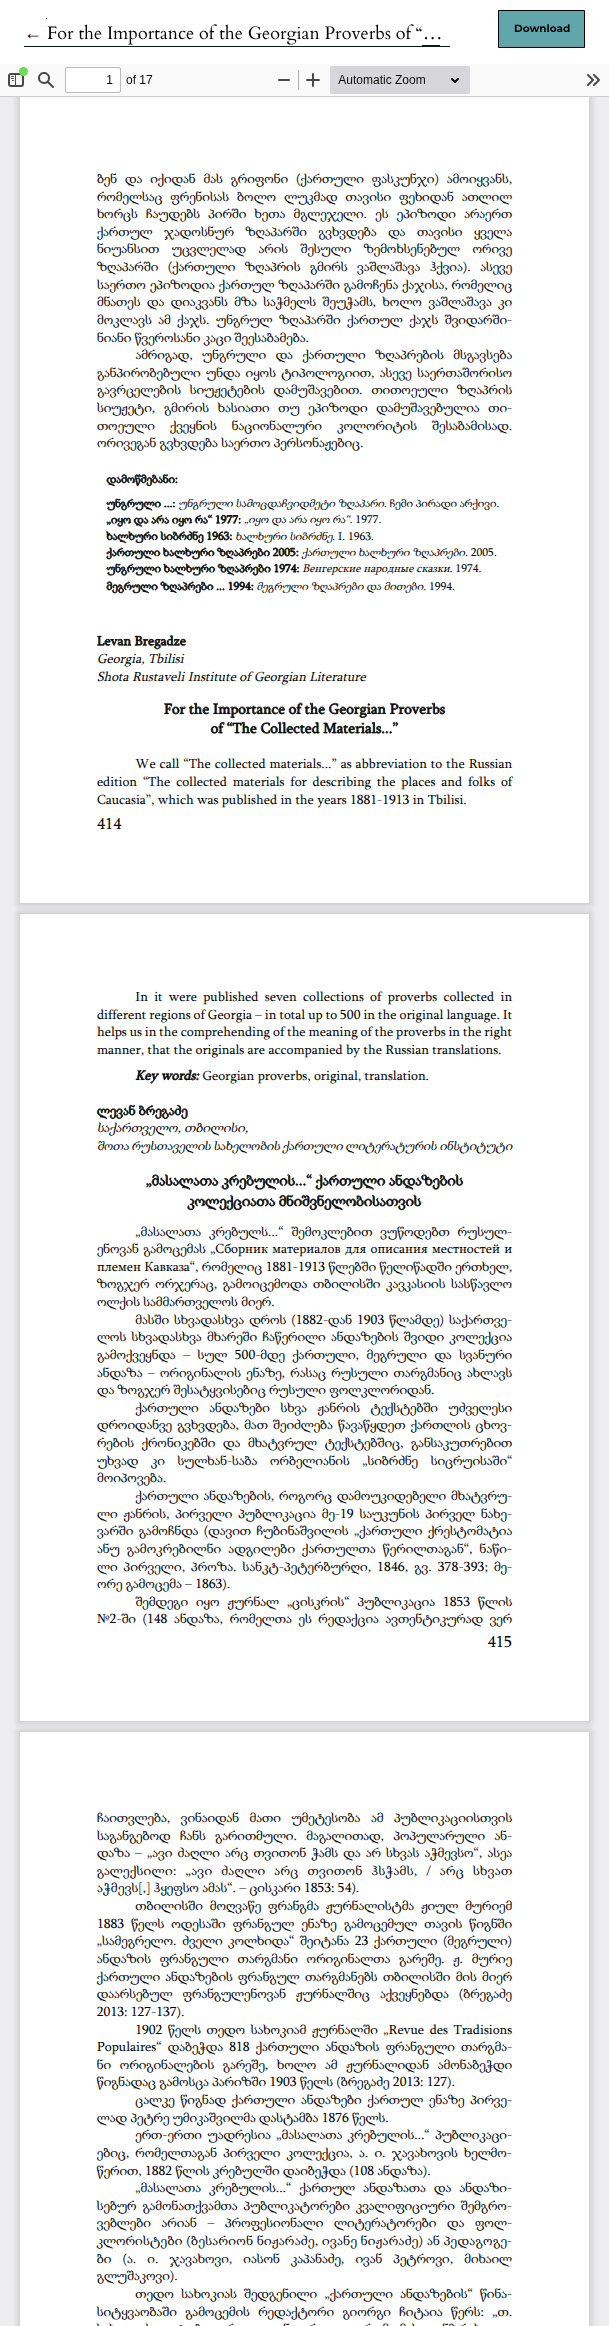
<!DOCTYPE html>
<meta charset="utf-8">
<style>body { margin: 0 } canvas { display: block }</style>
<canvas id="canvas" width="609" height="2326"></canvas>
<script type="module">
  const canvas = document.getElementById("canvas");
  const g = canvas.getContext("2d");
  g.miterLimit = 4;
  g.fontKerning = "normal";
  function drawText(s, x, y, [font, color]) {
    g.font = font;
    g.fillStyle = color;
    g.fillText(s, x, y);
  }
  function fillBox(x, y, w, h, color) {
    g.fillStyle = color;
    g.fillRect(x, y, w, h);
  }
  async function drawPicture(src, x, y, w, h) {
    const img = new Image();
    img.src = src;
    await img.decode();
    g.drawImage(img, x, y, w, h);
  }

  const s1 = ["18px Liberation Serif", "#000000"];
  const s2 = ["18px Cardo", "#000000"];
  const s3 = ["bold 10.5px Montserrat", "#000000"];

  fillBox(0, 0, 609, 2326, "#FFFFFF");
  drawText("←", 24, 39, s1);
  fillBox(24, 46, 426, 1, "#0D1819");
  drawText("For the Importance of the Georgian Proverbs of “…", 47, 39, s2);
  fillBox(46, 18, 1, 1, "#0D1819");
  fillBox(422, 45, 18, 1, "#0D1819");
  g.fillStyle = "#61A6AB";
  g.beginPath();
  g.rect(498.5, 10.5, 86, 37);
  g.fill();
  g.strokeStyle = "#000000";
  g.stroke();
  drawText("Download", 514, 32, s3);
  await drawPicture("pic1.png", 0, 64, 609, 2262);
</script>
